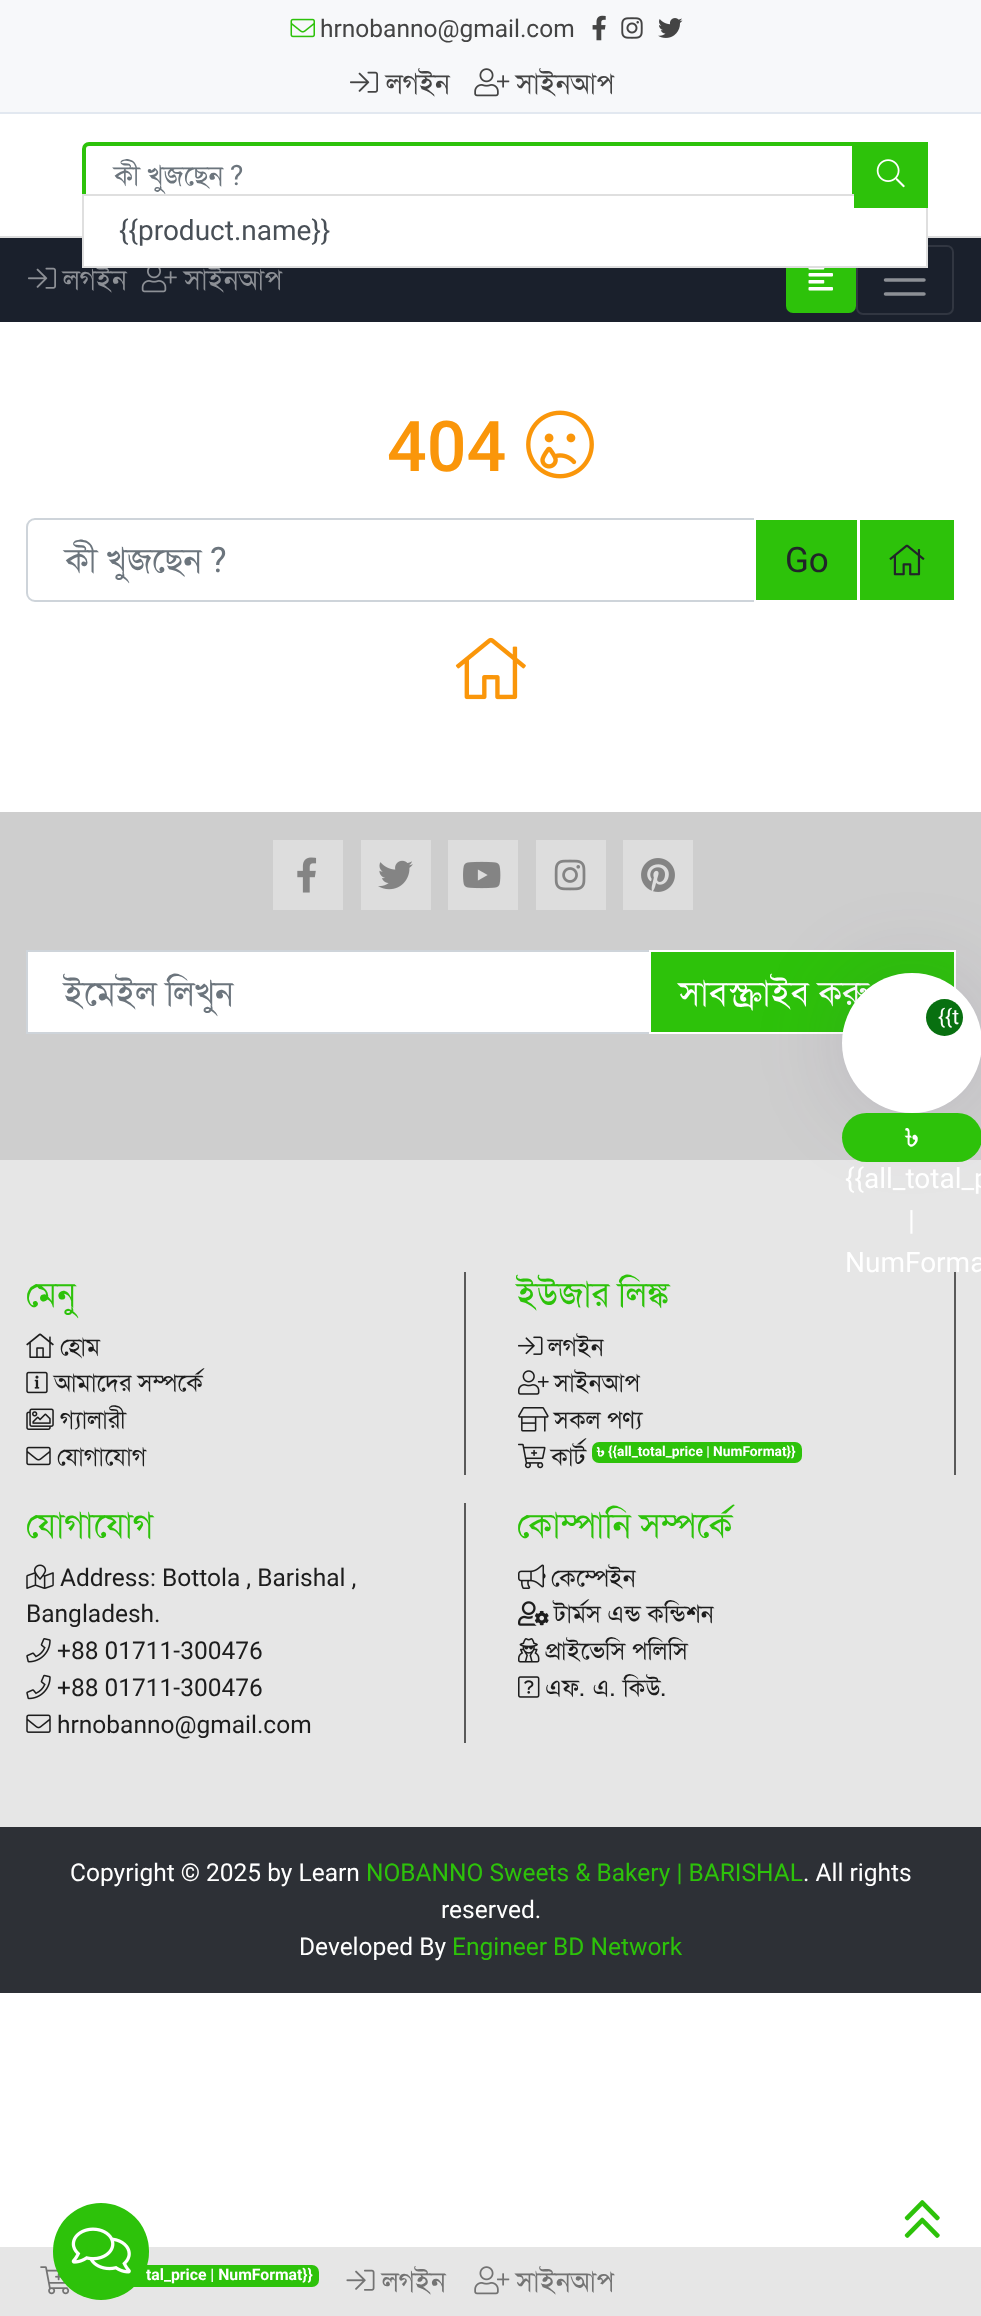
<!DOCTYPE html>
<meta charset="utf-8">
<style>body { margin: 0 } canvas { display: block }</style>
<canvas id="canvas" width="981" height="2316"></canvas>
<script type="module">
  const canvas = document.getElementById("canvas");
  const g = canvas.getContext("2d");
  g.miterLimit = 4;
  g.fontKerning = "normal";
  function drawText(s, x, y, [font, color]) {
    g.font = font;
    g.fillStyle = color;
    g.fillText(s, x, y);
  }
  function fillBox(x, y, w, h, color) {
    g.fillStyle = color;
    g.fillRect(x, y, w, h);
  }
  function fillRounded(x, y, w, h, r, color) {
    g.fillStyle = color;
    g.beginPath();
    g.roundRect(x, y, w, h, r);
    g.fill();
  }
  async function drawPicture(src, x, y, w, h) {
    const img = new Image();
    img.src = src;
    await img.decode();
    g.drawImage(img, x, y, w, h);
  }

  const s1 = ["24.5px Roboto", "#444444"];
  const s2 = ["28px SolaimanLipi", "#444444"];
  const s3 = ["28px SolaimanLipi", "#6C757D"];
  const s4 = ["28px Roboto", "#6C757D"];
  const s5 = ["28px SolaimanLipi", "#8D9096"];
  const s6 = ["28px Roboto", "#495057"];
  const s7 = ["500 70px Roboto", "#FA960A"];
  const s8 = ["35px SolaimanLipi", "#6C757D"];
  const s9 = ["35px Roboto", "#6C757D"];
  const s10 = ["35px Roboto", "#212529"];
  const s11 = ["35px SolaimanLipi", "#FFFFFF"];
  const s12 = ["35px SolaimanLipi", "#2DC20A"];
  const s13 = ["24.5px SolaimanLipi", "#1D1D1D"];
  const s14 = ["bold 13.75px SolaimanLipi", "#FFFFFF"];
  const s15 = ["bold 13.75px Roboto", "#FFFFFF"];
  const s16 = ["24.5px Roboto", "#1D1D1D"];
  const s17 = ["24.5px Roboto", "#FFFFFF"];
  const s18 = ["24.5px Roboto", "#2DC20A"];
  const s19 = ["bold 15.75px Roboto", "#FFFFFF"];
  const s20 = ["28px SolaimanLipi", "#737373"];
  const s21 = ["21px Roboto", "#FFFFFF"];
  const s22 = ["28px SolaimanLipi", "#FFFFFF"];
  const s23 = ["28px Roboto", "#FFFFFF"];

  fillBox(0, 0, 981, 2316, "#FFFFFF");
  fillBox(0, 0, 981, 112, "#F7F8FA");
  fillBox(0, 112, 981, 2, "#E2E8F0");
  await drawPicture("pic1.png", 290, 18, 25, 20);
  drawText("hrnobanno@gmail.com", 320, 37, s1);
  await drawPicture("pic2.png", 592, 15, 14, 26);
  await drawPicture("pic3.png", 621, 17, 22, 22);
  await drawPicture("pic4.png", 658, 18, 25, 20);
  await drawPicture("pic5.png", 350, 71, 28, 22);
  drawText("লগইন", 386, 93, s2);
  await drawPicture("pic6.png", 474, 68, 36, 29);
  drawText("সাইনআপ", 516, 93, s2);
  fillBox(0, 236, 981, 2, "#DDDDDD");
  g.beginPath();
  g.roundRect(84, 144, 770, 62, [5, 0, 0, 5]);
  g.strokeStyle = "#2DC20A";
  g.lineWidth = 4;
  g.stroke();
  g.save();
  g.beginPath();
  g.rect(107, 158, 698, 38);
  g.clip();
  drawText("কী খুজছেন", 114, 185, s3);
  g.restore();
  drawText("?", 230, 185, s4);
  fillBox(0, 238, 981, 84, "#1A202C");
  drawText("লগইন", 63, 289, s5);
  drawText("সাইনআপ", 184, 289, s5);
  g.fillStyle = "#2DC20A";
  g.beginPath();
  g.roundRect(787, 248, 68, 64, 6);
  g.fill();
  g.lineWidth = 2;
  g.stroke();
  g.beginPath();
  g.roundRect(857, 246, 96, 68, 6);
  g.strokeStyle = "#313641";
  g.stroke();
  g.beginPath();
  g.moveTo(885.5, 266);
  g.lineTo(924, 266);
  g.moveTo(885.5, 280);
  g.lineTo(924, 280);
  g.moveTo(885.5, 294);
  g.lineTo(924, 294);
  g.strokeStyle = "#8D9096";
  g.lineWidth = 3.5;
  g.lineCap = "round";
  g.stroke();
  g.fillStyle = "#FFFFFF";
  g.beginPath();
  g.rect(83, 195, 844, 72);
  g.fill();
  g.strokeStyle = "#DFDFDF";
  g.lineWidth = 2;
  g.stroke();
  g.fillStyle = "#2DC20A";
  g.beginPath();
  g.rect(855, 143, 72, 64);
  g.fill();
  g.strokeStyle = "#2DC20A";
  g.stroke();
  await drawPicture("pic7.png", 876, 159, 29, 29);
  drawText("{{product.name}}", 119, 240, s6);
  await drawPicture("pic8.png", 28, 267, 28, 22);
  await drawPicture("pic9.png", 141, 268, 36, 25);
  await drawPicture("pic10.png", 808, 268, 25, 23);
  drawText("404", 387, 471, s7);
  await drawPicture("pic11.png", 526, 410, 68, 69);
  g.beginPath();
  g.roundRect(27, 519, 728, 82, [8, 0, 0, 8]);
  g.strokeStyle = "#CED4DA";
  g.stroke();
  g.save();
  g.beginPath();
  g.rect(56, 539, 670, 46);
  g.clip();
  drawText("কী খুজছেন", 65, 572, s8);
  g.restore();
  drawText("?", 210, 572, s9);
  g.fillStyle = "#2DC20A";
  g.beginPath();
  g.rect(755, 519, 103, 82);
  g.fill();
  g.strokeStyle = "#FFFFFF";
  g.stroke();
  drawText("Go", 785, 572, s10);
  fillBox(860, 520, 94, 80, "#2DC20A");
  await drawPicture("pic12.png", 889, 544, 36, 32);
  await drawPicture("pic13.png", 455, 637, 71, 63);
  fillBox(0, 812, 981, 348, "#CECECE");
  fillBox(273, 840, 70, 70, "#DDDDDD");
  await drawPicture("pic14.png", 297, 857, 20, 36);
  fillBox(361, 840, 70, 70, "#DDDDDD");
  await drawPicture("pic15.png", 378, 860, 35, 30);
  fillBox(448, 840, 70, 70, "#DDDDDD");
  await drawPicture("pic16.png", 463, 861, 38, 28);
  fillBox(536, 840, 70, 70, "#DDDDDD");
  await drawPicture("pic17.png", 554, 859, 32, 32);
  fillBox(623, 840, 70, 70, "#DDDDDD");
  await drawPicture("pic18.png", 641, 858, 34, 34);
  g.fillStyle = "#FFFFFF";
  g.beginPath();
  g.rect(27, 951, 623, 82);
  g.fill();
  g.strokeStyle = "#CED4DA";
  g.stroke();
  drawText("ইমেইল লিখুন", 64, 1005, s8);
  g.fillStyle = "#2DC20A";
  g.beginPath();
  g.rect(650, 951, 305, 82);
  g.fill();
  g.strokeStyle = "#FFFFFF";
  g.stroke();
  drawText("সাবস্ক্রাইব করু", 679, 1005, s11);
  fillBox(0, 1160, 981, 667, "#E6E6E6");
  fillBox(464, 1272, 2, 203, "#5A5A5A");
  drawText("মেনু", 26, 1306, s12);
  await drawPicture("pic19.png", 26, 1333, 28, 25);
  drawText("হোম", 60, 1355, s13);
  await drawPicture("pic20.png", 26, 1371, 22, 23);
  drawText("আমাদের সম্পর্কে", 54, 1391, s13);
  await drawPicture("pic21.png", 26, 1408, 28, 22);
  drawText("গ্যালারী", 60, 1428, s13);
  await drawPicture("pic22.png", 26, 1446, 25, 20);
  drawText("যোগাযোগ", 57, 1465, s13);
  fillBox(954, 1272, 2, 203, "#5A5A5A");
  drawText("ইউজার লিঙ্ক", 517, 1306, s12);
  await drawPicture("pic23.png", 518, 1336, 25, 19);
  drawText("লগইন", 548, 1355, s13);
  await drawPicture("pic24.png", 518, 1370, 31, 25);
  drawText("সাইনআপ", 554, 1391, s13);
  await drawPicture("pic25.png", 518, 1407, 31, 25);
  drawText("সকল পণ্য", 554, 1428, s13);
  await drawPicture("pic26.png", 518, 1443, 28, 26);
  drawText("কার্ট", 551, 1465, s13);
  fillRounded(592, 1442, 210, 21, 7, "#2DC20A");
  drawText("৳", 597, 1456, s14);
  drawText("{{all_total_price | NumFormat}}", 608, 1456, s15);
  fillBox(464, 1503, 2, 240, "#5A5A5A");
  drawText("যোগাযোগ", 26, 1537, s12);
  await drawPicture("pic27.png", 26, 1564, 28, 25);
  drawText("Address: Bottola , Barishal ,", 60, 1586, s16);
  drawText("Bangladesh.", 26, 1622, s16);
  await drawPicture("pic28.png", 26, 1638, 25, 25);
  drawText("+88 01711-300476", 57, 1659, s16);
  await drawPicture("pic29.png", 26, 1674, 25, 26);
  drawText("+88 01711-300476", 57, 1696, s16);
  await drawPicture("pic30.png", 26, 1714, 25, 19);
  drawText("hrnobanno@gmail.com", 57, 1733, s16);
  drawText("কোম্পানি সম্পর্কে", 517, 1537, s12);
  await drawPicture("pic31.png", 518, 1564, 28, 25);
  drawText("কেম্পেইন", 551, 1586, s13);
  await drawPicture("pic32.png", 518, 1601, 31, 25);
  drawText("টার্মস এন্ড কন্ডিশন", 554, 1622, s13);
  await drawPicture("pic33.png", 518, 1638, 22, 25);
  drawText("প্রাইভেসি পলিসি", 545, 1659, s13);
  await drawPicture("pic34.png", 518, 1676, 22, 22);
  g.wordSpacing = "2px";
  drawText("এফ. এ. কিউ.", 545, 1696, s13);
  fillBox(0, 1827, 981, 166, "#2D3036");
  g.wordSpacing = "0px";
  drawText("Copyright © 2025 by Learn", 70, 1881, s17);
  drawText("NOBANNO Sweets & Bakery | BARISHAL", 366, 1881, s18);
  drawText(". All rights", 803, 1881, s17);
  drawText("reserved.", 441, 1918, s17);
  drawText("Developed By", 299, 1955, s17);
  drawText("Engineer BD Network", 452, 1955, s18);
  fillBox(0, 2247, 981, 69, "#E6E6E6");
  await drawPicture("pic35.png", 40, 2266, 30, 29);
  fillRounded(79, 2265, 240, 22, 7, "#2DC20A");
  drawText("tal_price | NumFormat}}", 146, 2280, s19);
  await drawPicture("pic36.png", 346, 2269, 29, 22);
  drawText("লগইন", 382, 2291, s20);
  await drawPicture("pic37.png", 474, 2266, 36, 29);
  drawText("সাইনআপ", 516, 2291, s20);
  g.fillStyle = "rgba(82, 63, 105, 0.15)";
  g.filter = "blur(44px)";
  g.beginPath();
  g.roundRect(842, 973, 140, 140, 70);
  g.fill();
  g.filter = "none";
  g.fillStyle = "#FFFFFF";
  g.beginPath();
  g.arc(912, 1043, 70, 0, Math.PI * 2);
  g.fill();
  g.fillStyle = "#087010";
  g.beginPath();
  g.arc(944.5, 1017.5, 18.5, 0, Math.PI * 2);
  g.fill();
  drawText("{{t", 938, 1024, s21);
  fillRounded(842, 1113, 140, 49, 24.5, "#2DC20A");
  drawText("৳", 905, 1146, s22);
  drawText("{{all_total_p", 845, 1188, s23);
  drawText("|", 908, 1230, s23);
  drawText("NumForma", 845, 1272, s23);
  fillRounded(53, 2203, 96, 97, 48, "#2DC20A");
  await drawPicture("pic38.png", 71, 2227, 60, 47);
  await drawPicture("pic39.png", 904, 2200, 36, 38);
</script>
